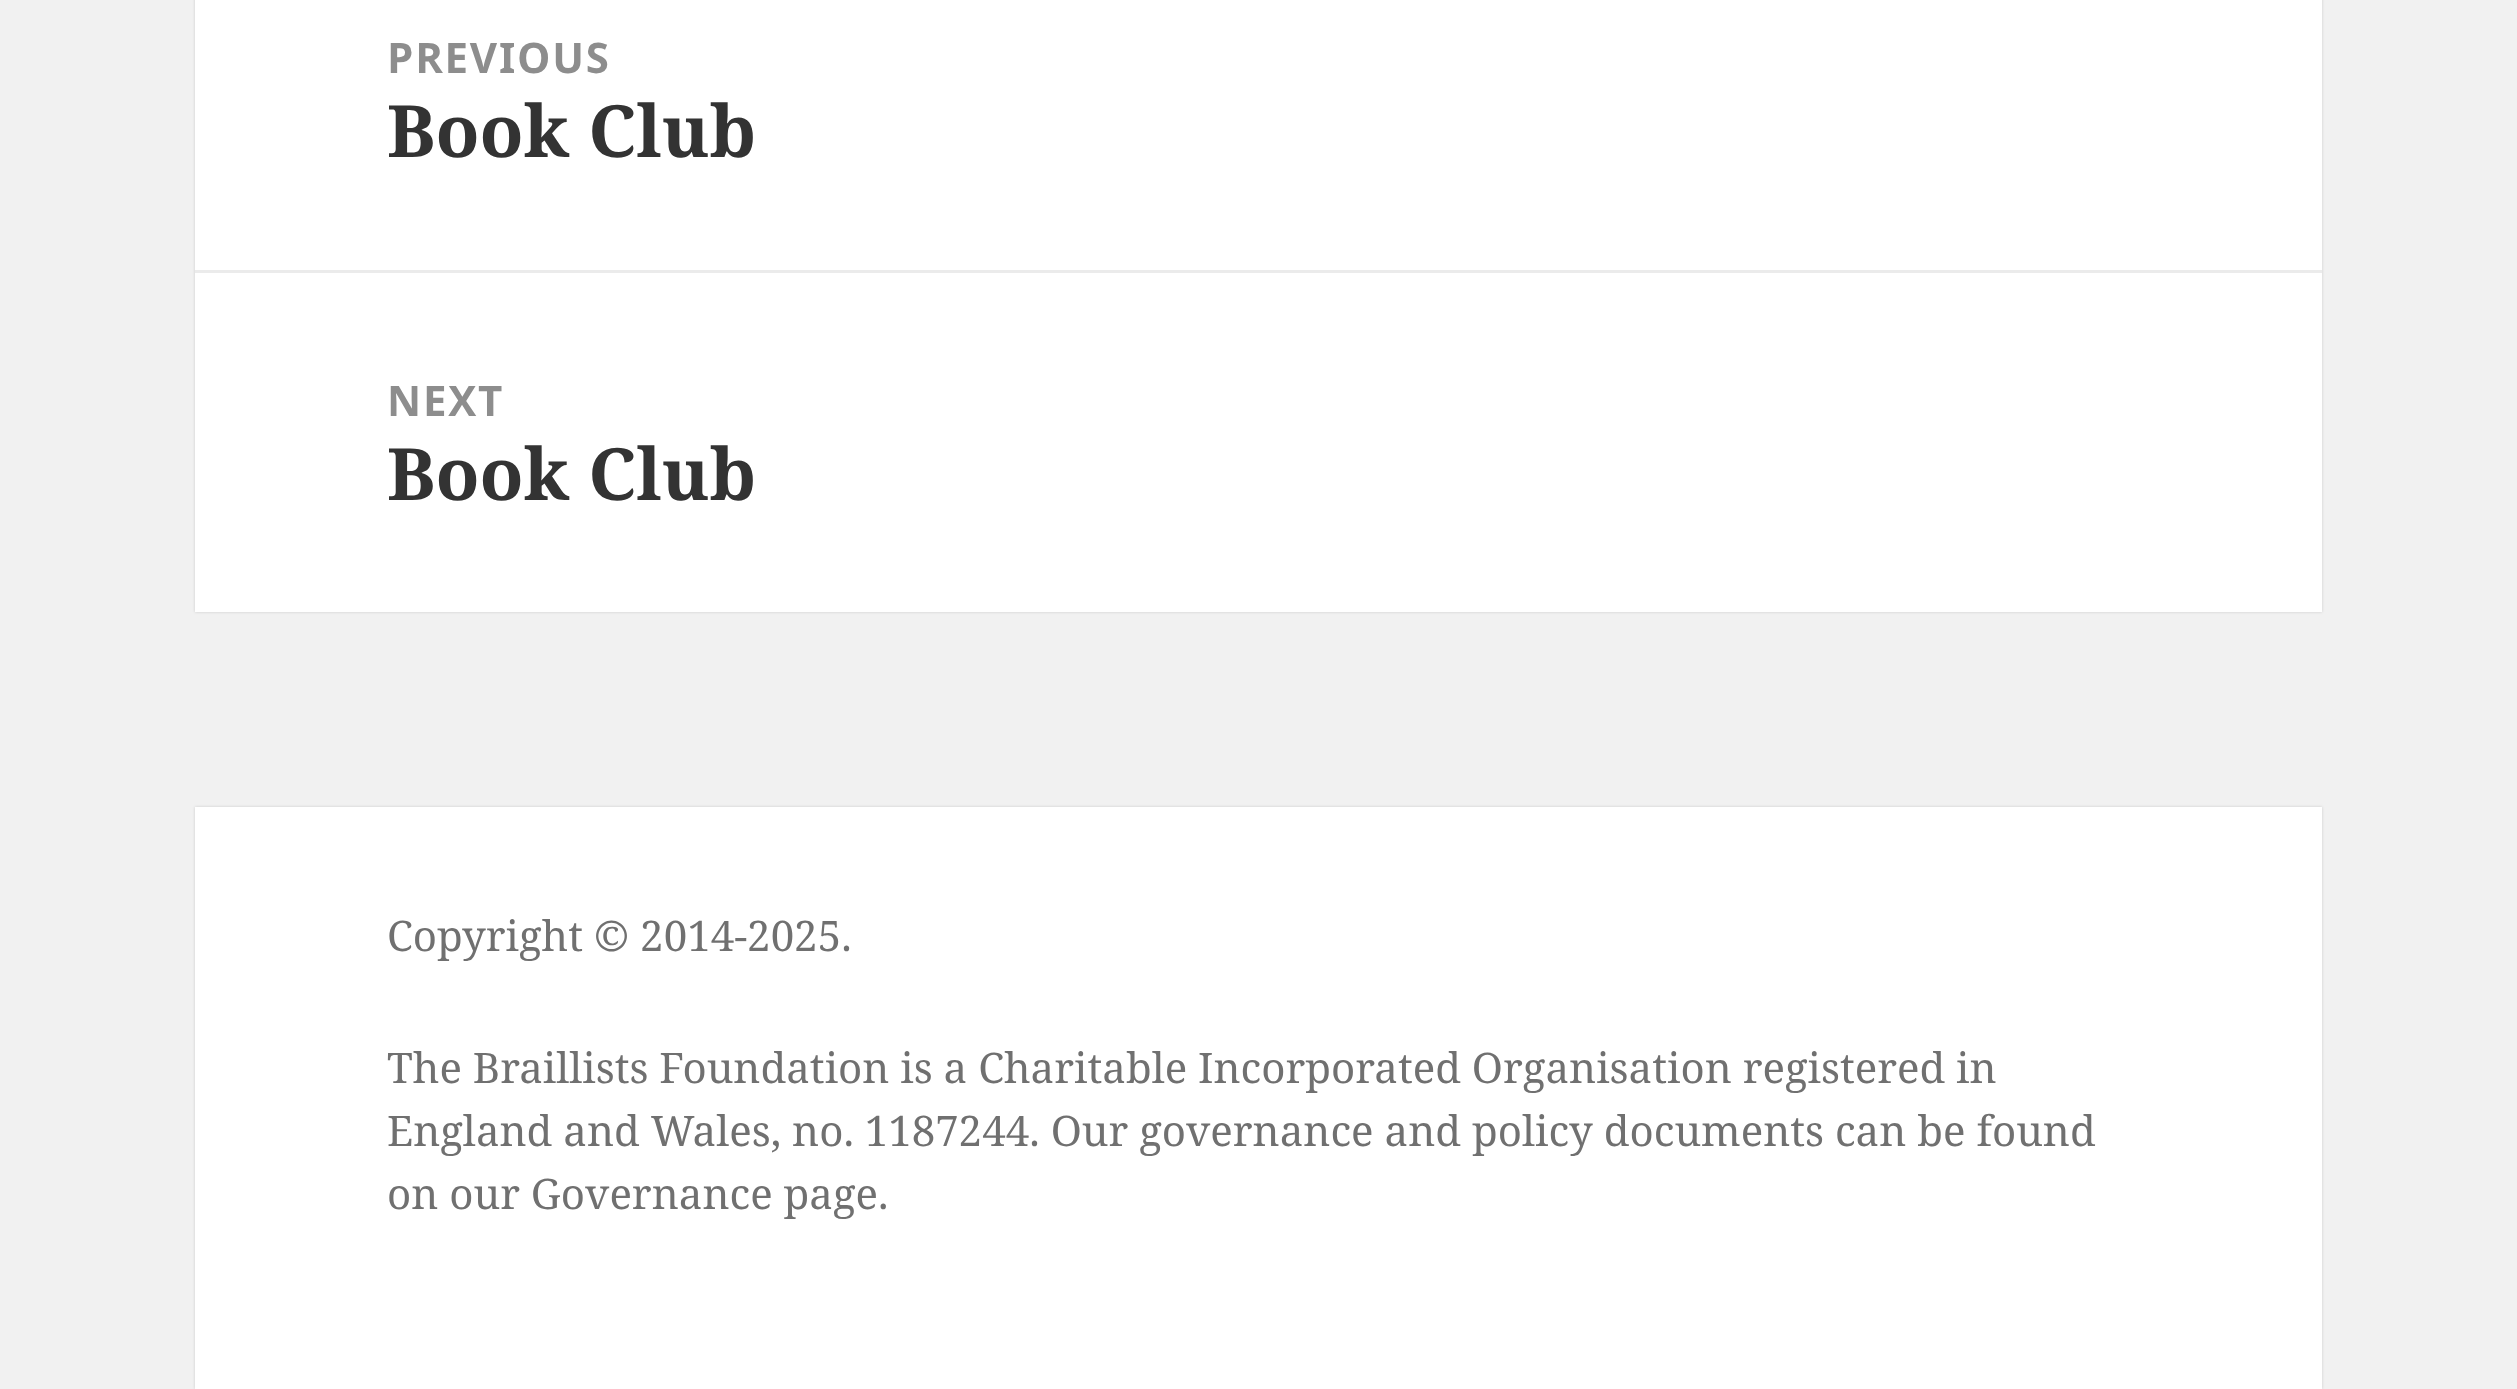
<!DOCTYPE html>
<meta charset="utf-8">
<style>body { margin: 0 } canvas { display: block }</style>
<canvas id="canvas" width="2517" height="1389"></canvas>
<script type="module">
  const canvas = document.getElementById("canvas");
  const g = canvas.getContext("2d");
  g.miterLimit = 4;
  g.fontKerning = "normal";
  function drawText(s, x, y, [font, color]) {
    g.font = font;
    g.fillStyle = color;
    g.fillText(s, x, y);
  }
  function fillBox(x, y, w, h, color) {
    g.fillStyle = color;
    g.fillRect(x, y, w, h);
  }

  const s1 = ["bold 42px Noto Sans", "#8D8D8D"];
  const s2 = ["bold 72px Noto Serif", "#333333"];
  const s3 = ["42px Noto Serif", "#707070"];

  fillBox(0, 0, 2517, 1389, "#F1F1F1");
  g.fillStyle = "rgba(0, 0, 0, 0.15)";
  g.filter = "blur(1.5px)";
  g.beginPath();
  g.rect(195, -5, 2127, 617);
  g.fill();
  g.filter = "none";
  fillBox(195, 0, 2127, 612, "#FFFFFF");
  g.letterSpacing = "1.75px";
  drawText("PREVIOUS", 387, 73, s1);
  g.letterSpacing = "0px";
  drawText("Book Club", 387, 157, s2);
  fillBox(195, 270, 2127, 3, "#EBEBEB");
  g.letterSpacing = "1.75px";
  drawText("NEXT", 387, 416, s1);
  g.letterSpacing = "0px";
  drawText("Book Club", 387, 500, s2);
  g.fillStyle = "rgba(0, 0, 0, 0.15)";
  g.filter = "blur(1.5px)";
  g.beginPath();
  g.rect(195, 807, 2127, 582);
  g.fill();
  g.filter = "none";
  fillBox(195, 807, 2127, 582, "#FFFFFF");
  drawText("Copyright © 2014-2025.", 387, 951, s3);
  drawText("The Braillists Foundation is a Charitable Incorporated Organisation registered in", 387, 1083, s3);
  drawText("England and Wales, no. 1187244. Our governance and policy documents can be found", 387, 1146, s3);
  drawText("on our Governance page.", 387, 1209, s3);
</script>
